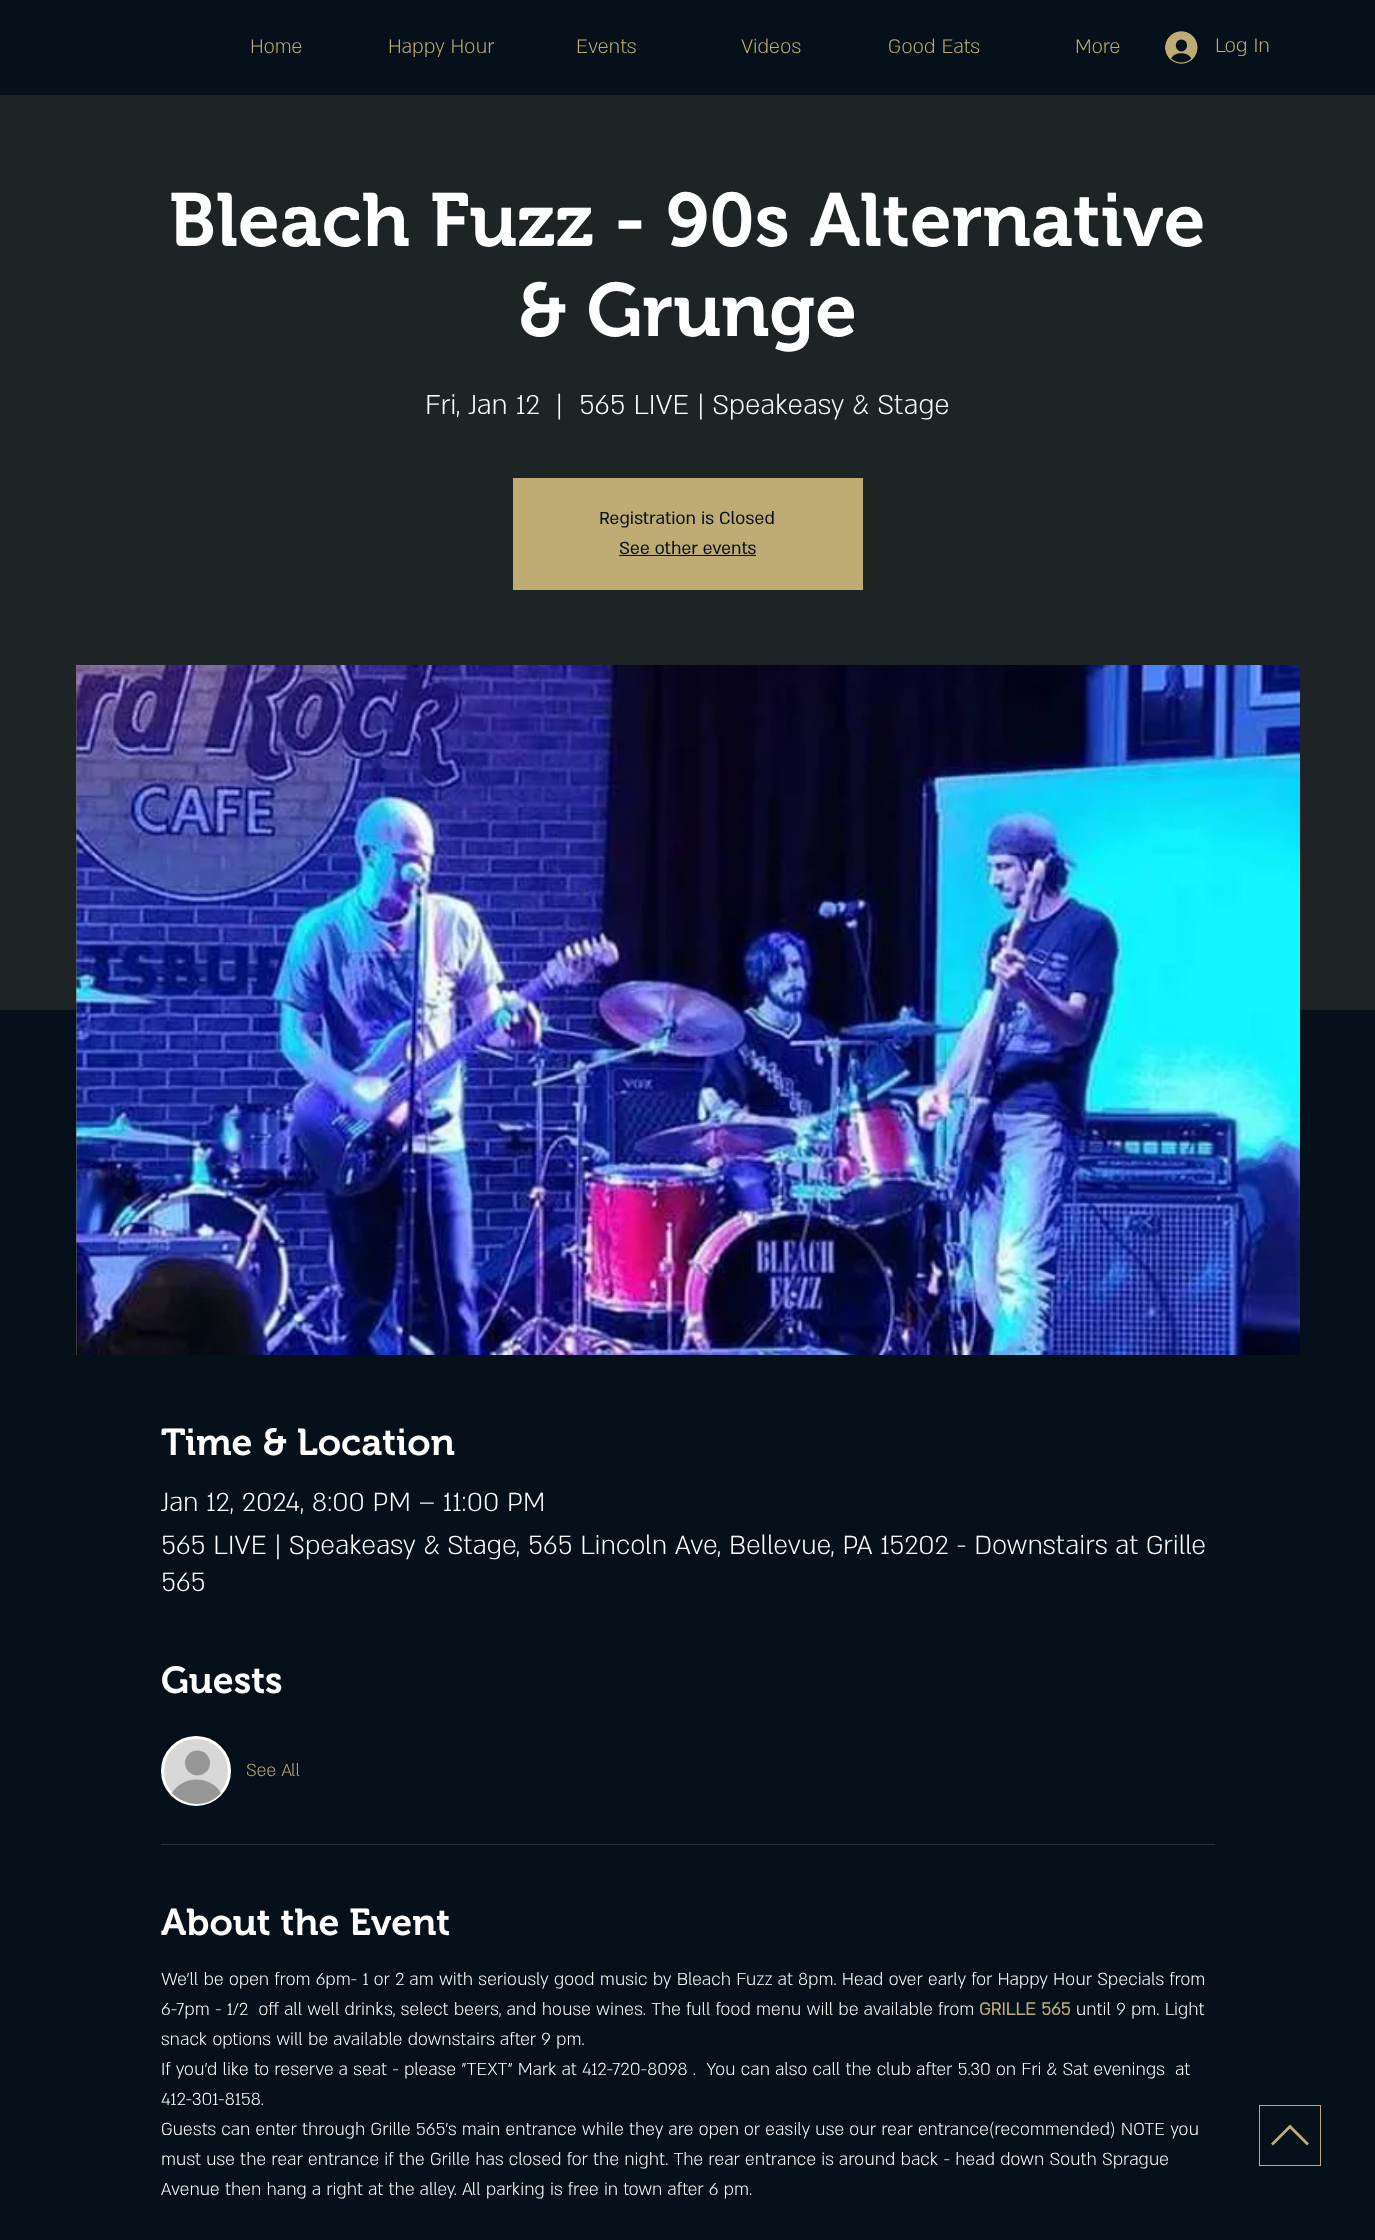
<!DOCTYPE html>
<meta charset="utf-8">
<style>body { margin: 0 } canvas { display: block }</style>
<canvas id="canvas" width="1375" height="2240"></canvas>
<script type="module">
  const canvas = document.getElementById("canvas");
  const g = canvas.getContext("2d");
  g.miterLimit = 4;
  g.fontKerning = "normal";
  function drawText(s, x, y, [font, color]) {
    g.font = font;
    g.fillStyle = color;
    g.fillText(s, x, y);
  }
  function fillBox(x, y, w, h, color) {
    g.fillStyle = color;
    g.fillRect(x, y, w, h);
  }
  async function drawPicture(src, x, y, w, h) {
    const img = new Image();
    img.src = src;
    await img.decode();
    g.drawImage(img, x, y, w, h);
  }

  const s1 = ["300 22.5px 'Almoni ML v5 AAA'", "#BEAC74"];
  const s2 = ["600 75px 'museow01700'", "#FFFFFF"];
  const s3 = ["300 31.25px 'Almoni ML v5 AAA'", "#FFFFFF"];
  const s4 = ["20px 'Almoni ML v5 AAA'", "#06101B"];
  const s5 = ["600 37.5px 'museow01700'", "#FFFFFF"];
  const s6 = ["300 30px 'Almoni ML v5 AAA'", "#FFFFFF"];
  const s7 = ["300 20px 'Almoni ML v5 AAA'", "#BEAC74"];
  const s8 = ["300 20px 'Almoni ML v5 AAA'", "#FFFFFF"];
  const s9 = ["bold 20px 'Almoni ML v5 AAA'", "#BEAC74"];

  fillBox(0, 0, 1375, 2240, "#06101B");
  drawText("Home", 250, 53, s1);
  drawText("Happy Hour", 388, 53, s1);
  drawText("Events", 576, 53, s1);
  drawText("Videos", 741, 53, s1);
  drawText("Good Eats", 888, 53, s1);
  drawText("More", 1075, 53, s1);
  await drawPicture("pic1.png", 1165, 31, 33, 33);
  drawText("Log In", 1215, 52, s1);
  fillBox(0, 95, 1375, 915, "#1E2426");
  drawText("Bleach Fuzz - 90s Alternative", 169, 246, s2);
  drawText("& Grunge", 518, 336, s2);
  drawText("Fri, Jan 12", 425, 414, s3);
  drawText("|", 556, 414, s3);
  drawText("565 LIVE | Speakeasy & Stage", 579, 414, s3);
  fillBox(513, 478, 350, 112, "#BEAC74");
  drawText("Registration is Closed", 599, 524, s4);
  drawText("See other events", 619, 554, s4);
  fillBox(619, 555, 137, 1, "#06101B");
  fillBox(76, 665, 1, 690, "#7F734E");
  await drawPicture("pic2.png", 76, 665, 1224, 690);
  drawText("Time & Location", 161, 1455, s5);
  drawText("Jan 12, 2024, 8:00 PM – 11:00 PM", 161, 1511, s6);
  drawText("565 LIVE | Speakeasy & Stage, 565 Lincoln Ave, Bellevue, PA 15202 - Downstairs at Grille", 161, 1554, s6);
  drawText("565", 161, 1591, s6);
  drawText("Guests", 161, 1693, s5);
  g.fillStyle = "#D8D8D8";
  g.beginPath();
  g.arc(196, 1771, 33.5, 0, Math.PI * 2);
  g.fill();
  g.strokeStyle = "#FFFFFF";
  g.lineWidth = 3;
  g.stroke();
  g.fillStyle = "#969696";
  g.beginPath();
  g.arc(197.5, 1763, 12.5, 0, Math.PI * 2);
  g.fill();
  g.beginPath();
  g.moveTo(221, 1793);
  g.bezierCurveTo(208, 1808, 185, 1807, 172, 1793);
  g.bezierCurveTo(183, 1775, 210, 1775, 221, 1793);
  g.closePath();
  g.fill();
  drawText("See All", 246, 1776, s7);
  fillBox(161, 1844, 1054, 1, "#2B343D");
  drawText("About the Event", 161, 1935, s5);
  drawText("We'll be open from 6pm- 1 or 2 am with seriously good music by Bleach Fuzz at 8pm. Head over early for Happy Hour Specials from", 161, 1985, s8);
  drawText("6-7pm - 1/2  off all well drinks, select beers, and house wines. The full food menu will be available from", 161, 2015, s8);
  drawText("GRILLE 565", 979, 2015, s9);
  drawText("until 9 pm. Light", 1076, 2015, s8);
  drawText("snack options will be available downstairs after 9 pm.", 161, 2045, s8);
  drawText("If you'd like to reserve a seat - please \"TEXT\" Mark at 412-720-8098 .  You can also call the club after 5.30 on Fri & Sat evenings  at", 161, 2075, s8);
  drawText("412-301-8158.", 161, 2105, s8);
  drawText("Guests can enter through Grille 565’s main entrance while they are open or easily use our rear entrance(recommended) NOTE you", 161, 2135, s8);
  drawText("must use the rear entrance if the Grille has closed for the night. The rear entrance is around back - head down South Sprague", 161, 2165, s8);
  drawText("Avenue then hang a right at the alley. All parking is free in town after 6 pm.", 161, 2195, s8);
  g.strokeStyle = "#BEAC74";
  g.lineWidth = 1;
  g.strokeRect(1259.5, 2105.5, 61, 60);
  g.fillStyle = "#BEAC74";
  g.beginPath();
  g.moveTo(1271, 2143.5);
  g.lineTo(1273, 2145.5);
  g.lineTo(1290, 2128.5);
  g.lineTo(1307, 2145.5);
  g.lineTo(1309, 2143.5);
  g.lineTo(1290, 2124.5);
  g.closePath();
  g.fill();
</script>
